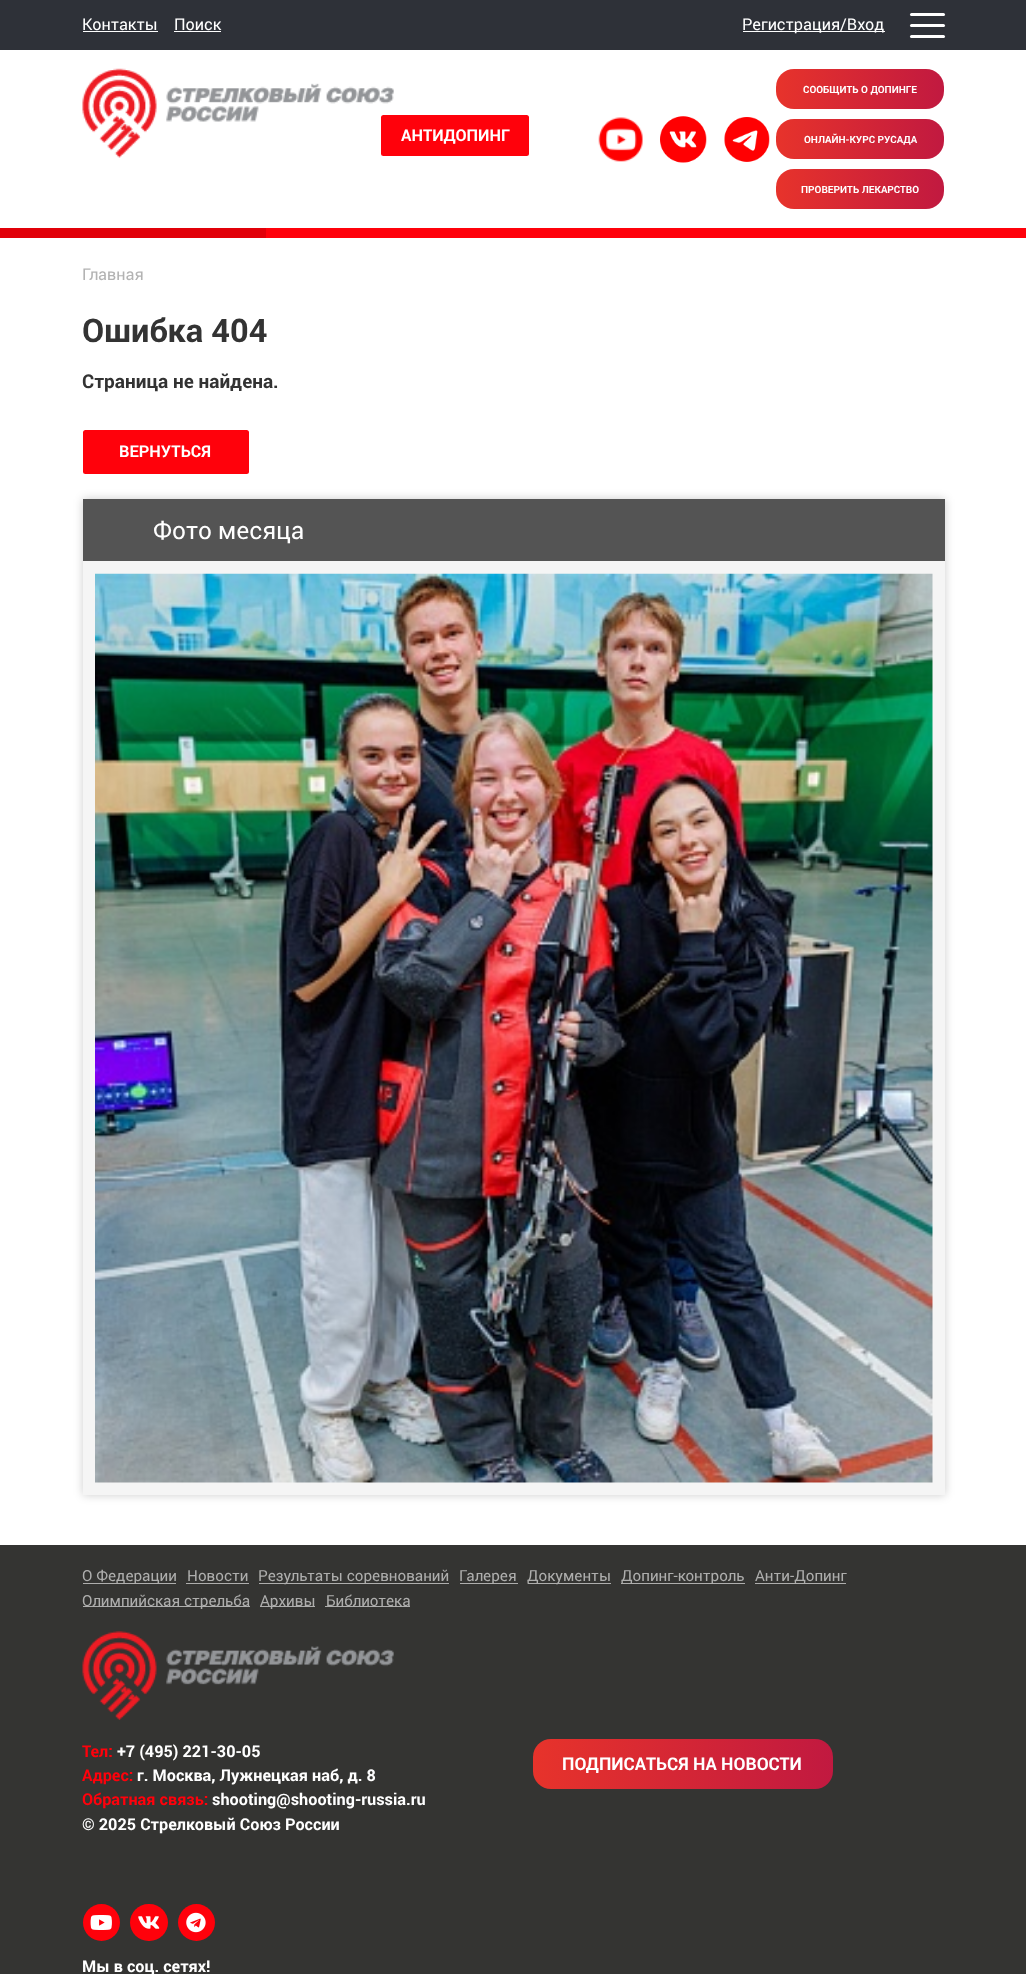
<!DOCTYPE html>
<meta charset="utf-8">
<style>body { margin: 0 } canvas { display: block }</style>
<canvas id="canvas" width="1026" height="1974"></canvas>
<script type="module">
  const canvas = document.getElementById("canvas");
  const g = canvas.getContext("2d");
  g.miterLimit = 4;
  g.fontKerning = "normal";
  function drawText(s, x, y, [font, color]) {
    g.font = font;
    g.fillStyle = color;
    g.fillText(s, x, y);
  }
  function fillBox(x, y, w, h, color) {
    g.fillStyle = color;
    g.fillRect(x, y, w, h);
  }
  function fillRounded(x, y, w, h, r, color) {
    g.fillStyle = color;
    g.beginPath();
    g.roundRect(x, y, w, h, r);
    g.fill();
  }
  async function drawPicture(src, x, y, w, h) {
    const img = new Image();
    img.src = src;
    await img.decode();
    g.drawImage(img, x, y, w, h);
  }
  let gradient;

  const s1 = ["16.25px Roboto", "#FFFFFF"];
  const s2 = ["bold 16.25px Roboto", "#FFFFFF"];
  const s3 = ["bold 10px Roboto", "#FFFFFF"];
  const s4 = ["16.25px Roboto", "#B3B3B3"];
  const s5 = ["bold 32.5px Roboto", "#333333"];
  const s6 = ["bold 19px Roboto", "#333333"];
  const s7 = ["24.5px Roboto", "#FFFFFF"];
  const s8 = ["15.25px Roboto", "#AEAEAD"];
  const s9 = ["bold 16.25px Roboto", "#FF010B"];
  const s10 = ["bold 17.5px Roboto", "#FFFFFF"];

  fillBox(0, 0, 1026, 1974, "#FFFFFF");
  fillBox(0, 0, 1026, 50, "#2E3138");
  drawText("Контакты", 82, 30, s1);
  fillBox(83, 31, 75, 1, "#FFFFFF");
  drawText("Поиск", 174, 30, s1);
  fillBox(174, 31, 47, 1, "#FFFFFF");
  fillBox(743, 31, 142, 1, "#FFFFFF");
  drawText("Регистрация/Вход", 742, 30, s1);
  fillRounded(910, 13, 35, 3, 1.5, "#FFFFFF");
  fillRounded(910, 24, 35, 3, 1.5, "#FFFFFF");
  fillRounded(910, 35, 35, 3, 1.5, "#FFFFFF");
  await drawPicture("pic1.png", 82, 68, 312, 90);
  fillRounded(381, 115, 148, 41, 2.5, "#FF010B");
  drawText("АНТИДОПИНГ", 401, 141, s2);
  await drawPicture("pic2.png", 598, 117, 45, 45);
  await drawPicture("pic3.png", 660, 116, 47, 47);
  await drawPicture("pic4.png", 724, 117, 46, 45);
  gradient = g.createLinearGradient(944, 89, 776, 89);
  gradient.addColorStop(0, "#C11940");
  gradient.addColorStop(1, "#E7332B");
  g.fillStyle = gradient;
  g.beginPath();
  g.roundRect(776, 69, 168, 40, 18);
  g.fill();
  drawText("СООБЩИТЬ О ДОПИНГЕ", 803, 93, s3);
  gradient = g.createLinearGradient(944, 139, 776, 139);
  gradient.addColorStop(0, "#C11940");
  gradient.addColorStop(1, "#E7332B");
  g.fillStyle = gradient;
  g.beginPath();
  g.roundRect(776, 119, 168, 40, 18);
  g.fill();
  drawText("ОНЛАЙН-КУРС РУСАДА", 804, 143, s3);
  gradient = g.createLinearGradient(944, 189, 776, 189);
  gradient.addColorStop(0, "#C11940");
  gradient.addColorStop(1, "#E7332B");
  g.fillStyle = gradient;
  g.beginPath();
  g.roundRect(776, 169, 168, 40, 18);
  g.fill();
  drawText("ПРОВЕРИТЬ ЛЕКАРСТВО", 801, 193, s3);
  fillBox(266, 228, 760, 10, "#FF010B");
  fillBox(0, 228, 266, 10, "#E10009");
  drawText("Главная", 82, 280, s4);
  drawText("Ошибка 404", 82, 342, s5);
  drawText("Страница не найдена.", 82, 388, s6);
  fillRounded(83, 430, 166, 44, 2.5, "#FF010B");
  drawText("ВЕРНУТЬСЯ", 119, 457, s2);
  g.fillStyle = "rgba(0, 0, 0, 0.2)";
  g.filter = "blur(5px)";
  g.beginPath();
  g.rect(83, 499, 862, 996);
  g.fill();
  g.filter = "none";
  fillBox(83, 561, 862, 934, "#F5F5F5");
  fillBox(83, 499, 862, 62, "#545454");
  drawText("Фото месяца", 153, 539, s7);
  await drawPicture("pic5.png", 95, 573, 838, 910);
  fillBox(0, 1545, 1026, 429, "#343432");
  fillBox(83, 1583, 93, 1, "#AEAEAD");
  drawText("О Федерации", 82, 1581, s8);
  drawText("Новости", 187, 1581, s8);
  fillBox(186, 1583, 63, 1, "#AEAEAD");
  fillBox(259, 1583, 190, 1, "#AEAEAD");
  drawText("Результаты соревнований", 258, 1581, s8);
  fillBox(460, 1583, 58, 1, "#AEAEAD");
  drawText("Галерея", 459, 1581, s8);
  fillBox(528, 1583, 83, 1, "#AEAEAD");
  drawText("Документы", 527, 1581, s8);
  fillBox(621, 1583, 124, 1, "#AEAEAD");
  drawText("Допинг-контроль", 621, 1581, s8);
  fillBox(755, 1583, 91, 1, "#AEAEAD");
  drawText("Анти-Допинг", 755, 1581, s8);
  fillBox(83, 1606, 167, 1, "#AEAEAD");
  drawText("Олимпийская стрельба", 82, 1606, s8);
  fillBox(260, 1606, 55, 1, "#AEAEAD");
  drawText("Архивы", 260, 1606, s8);
  fillBox(325, 1606, 85, 1, "#AEAEAD");
  drawText("Библиотека", 326, 1606, s8);
  await drawPicture("pic6.png", 82, 1631, 312, 89);
  drawText("Тел:", 82, 1757, s9);
  drawText("+7 (495) 221-30-05", 117, 1757, s2);
  drawText("Адрес:", 82, 1781, s9);
  drawText("г. Москва, Лужнецкая наб, д. 8", 137, 1781, s2);
  drawText("Обратная связь:", 82, 1805, s9);
  drawText("shooting@shooting-russia.ru", 212, 1805, s2);
  drawText("© 2025 Стрелковый Союз России", 82, 1830, s2);
  gradient = g.createLinearGradient(833, 1764, 533, 1764);
  gradient.addColorStop(0, "#C11940");
  gradient.addColorStop(1, "#E7332B");
  g.fillStyle = gradient;
  g.beginPath();
  g.roundRect(533, 1739, 300, 50, 18);
  g.fill();
  drawText("ПОДПИСАТЬСЯ НА НОВОСТИ", 562, 1770, s10);
  g.fillStyle = "#FF010B";
  g.beginPath();
  g.arc(101.5, 1922.5, 18.5, 0, Math.PI * 2);
  g.fill();
  await drawPicture("pic7.png", 90, 1915, 22, 15);
  fillRounded(130, 1904, 38, 37, 18.5, "#FF010B");
  await drawPicture("pic8.png", 138, 1916, 22, 13);
  g.beginPath();
  g.arc(196.5, 1922.5, 18.5, 0, Math.PI * 2);
  g.fill();
  await drawPicture("pic9.png", 186, 1912, 20, 21);
  drawText("Мы в соц. сетях!", 82, 1972, s2);
</script>
